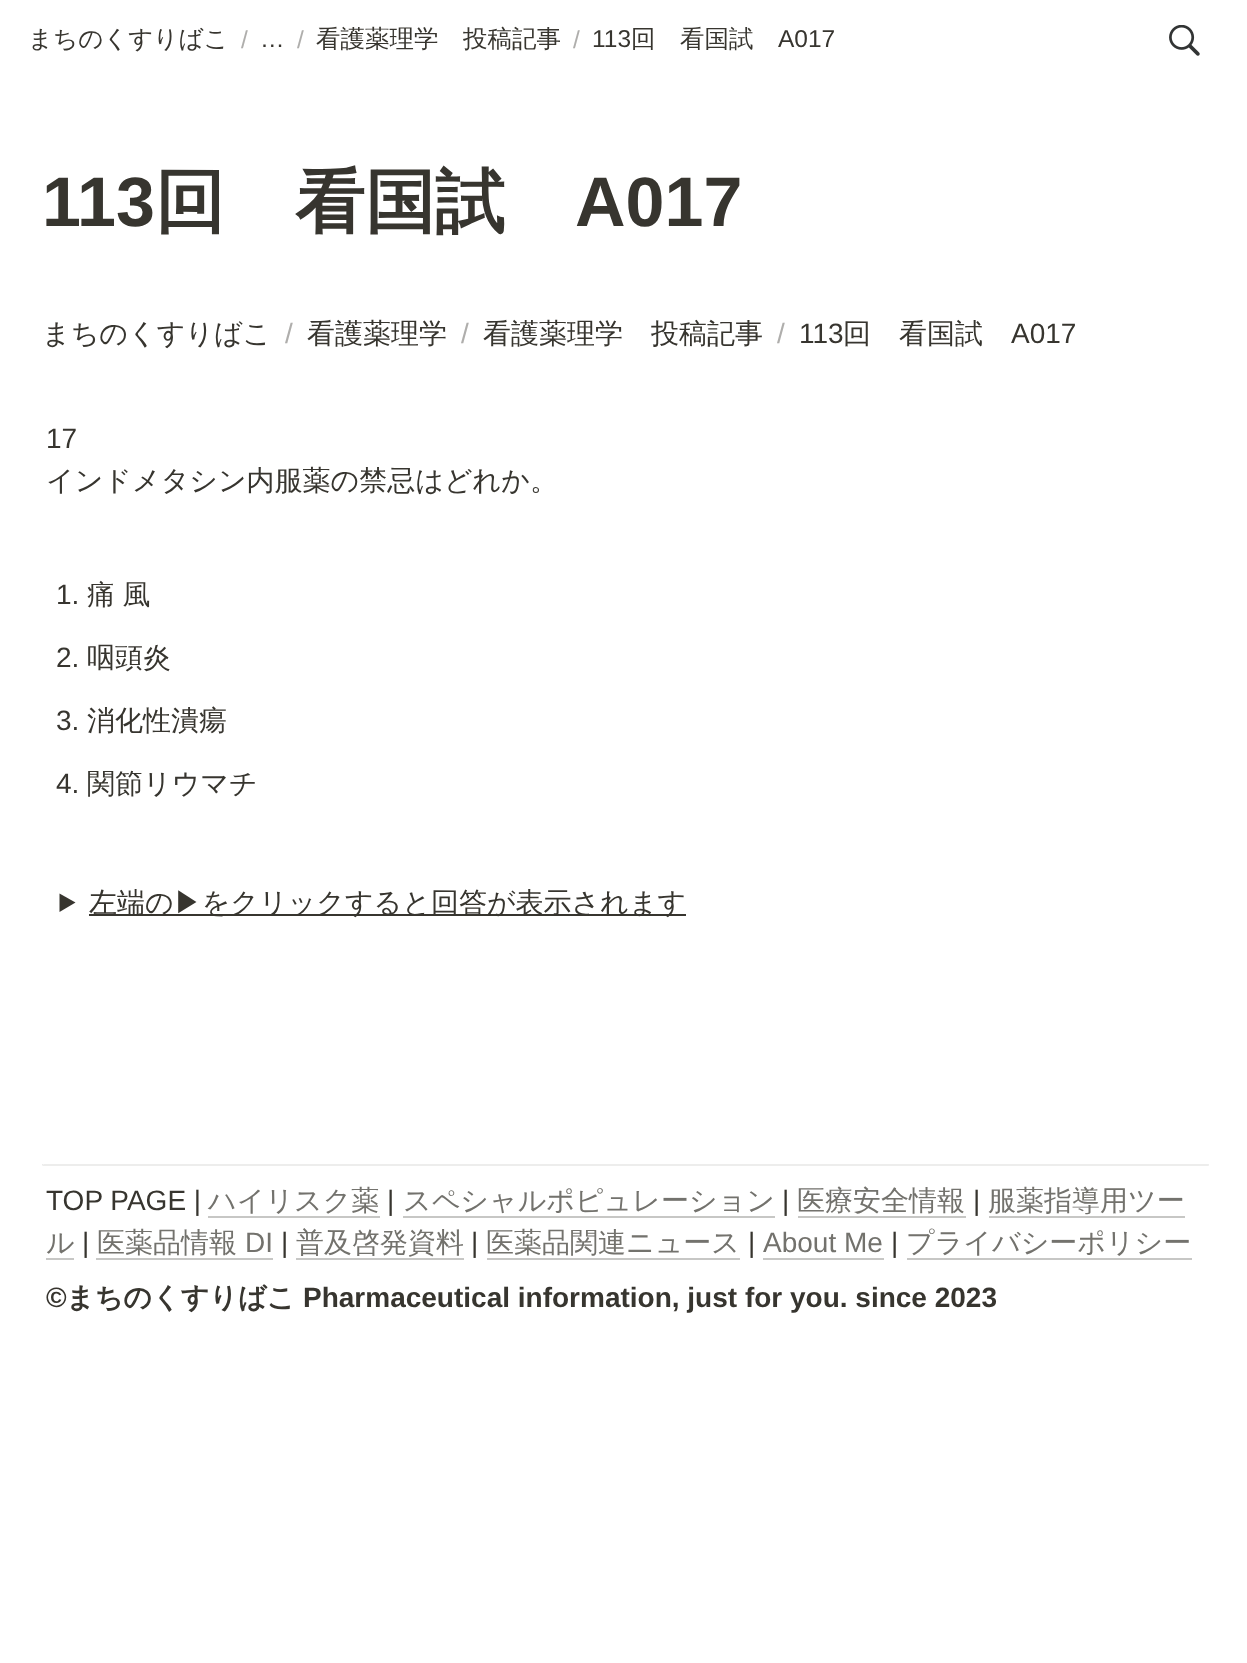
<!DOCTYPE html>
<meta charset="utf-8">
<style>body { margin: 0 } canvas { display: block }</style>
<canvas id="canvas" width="1247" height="1663"></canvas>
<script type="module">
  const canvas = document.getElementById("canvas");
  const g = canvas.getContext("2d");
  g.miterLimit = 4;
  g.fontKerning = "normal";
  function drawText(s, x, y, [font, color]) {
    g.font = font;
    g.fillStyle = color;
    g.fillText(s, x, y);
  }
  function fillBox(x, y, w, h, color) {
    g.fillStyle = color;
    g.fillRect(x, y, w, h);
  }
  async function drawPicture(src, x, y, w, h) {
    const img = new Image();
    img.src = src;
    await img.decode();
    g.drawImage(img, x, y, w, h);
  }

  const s1 = ["500 24.5px WenQuanYi Zen Hei", "#37352F"];
  const s2 = ["24.5px Liberation Sans", "#AFAEAC"];
  const s3 = ["24.5px Liberation Sans", "#37352F"];
  const s4 = ["bold 70px Liberation Sans", "#37352F"];
  const s5 = ["bold 70px WenQuanYi Zen Hei", "#37352F"];
  const s6 = ["500 28px WenQuanYi Zen Hei", "#37352F"];
  const s7 = ["28px Liberation Sans", "#AFAEAC"];
  const s8 = ["28px Liberation Sans", "#37352F"];
  const s9 = ["500 28px WenQuanYi Zen Hei", "#73726D"];
  const s10 = ["28px Liberation Sans", "#73726D"];
  const s11 = ["bold 28px Liberation Sans", "#37352F"];
  const s12 = ["bold 28px WenQuanYi Zen Hei", "#37352F"];

  fillBox(0, 0, 1247, 1663, "#FFFFFF");
  drawText("まちのくすりばこ", 28, 47, s1);
  drawText("/", 241, 48, s2);
  drawText("…", 260, 47, s3);
  drawText("/", 297, 48, s2);
  drawText("看護薬理学　投稿記事", 316, 47, s1);
  drawText("/", 573, 48, s2);
  drawText("113", 592, 47, s3);
  drawText("回　看国試", 631, 47, s1);
  drawText("A017", 778, 47, s3);
  await drawPicture("pic1.png", 1169, 25, 31, 31);
  drawText("113", 42, 226, s4);
  drawText("回　看国試", 155, 226, s5);
  drawText("A017", 575, 226, s4);
  drawText("まちのくすりばこ", 42, 343, s6);
  drawText("/", 285, 343, s7);
  drawText("看護薬理学", 307, 343, s6);
  drawText("/", 461, 343, s7);
  drawText("看護薬理学　投稿記事", 483, 343, s6);
  drawText("/", 777, 343, s7);
  drawText("113", 799, 343, s8);
  drawText("回　看国試", 843, 343, s6);
  drawText("A017", 1011, 343, s8);
  drawText("17", 46, 448, s8);
  drawText("インドメタシン内服薬の禁忌はどれか。", 46, 490, s6);
  drawText("1.", 56, 604, s8);
  g.wordSpacing = "-1px";
  drawText("痛 風", 87, 604, s6);
  g.wordSpacing = "0px";
  drawText("2.", 56, 667, s8);
  drawText("咽頭炎", 87, 667, s6);
  drawText("3.", 56, 730, s8);
  drawText("消化性潰瘍", 87, 730, s6);
  drawText("4.", 56, 793, s8);
  drawText("関節リウマチ", 87, 793, s6);
  g.beginPath();
  g.moveTo(59.5, 893.5);
  g.lineTo(75.5, 902.5);
  g.lineTo(59.5, 912);
  g.closePath();
  g.fill();
  fillBox(89, 914, 597, 2, "#37352F");
  drawText("左端の▶︎をクリックすると回答が表示されます", 89, 912, s6);
  g.fillStyle = "#EDEDEC";
  g.beginPath();
  g.moveTo(1209, 1164);
  g.lineTo(1209, 1165.5);
  g.lineTo(1207.5, 1164);
  g.closePath();
  g.fill();
  g.beginPath();
  g.moveTo(1209, 1166);
  g.lineTo(42, 1166);
  g.lineTo(44, 1164);
  g.lineTo(1208, 1164);
  g.closePath();
  g.fill();
  g.fillStyle = "#EBEBEB";
  g.beginPath();
  g.moveTo(42, 1165.5);
  g.lineTo(42, 1164);
  g.lineTo(44, 1164);
  g.closePath();
  g.fill();
  drawText("TOP PAGE |", 46, 1210, s8);
  drawText("ハイリスク薬", 208, 1210, s9);
  fillBox(208, 1216, 172, 2, "#C7C7C5");
  drawText("|", 387, 1210, s8);
  drawText("スペシャルポピュレーション", 403, 1210, s9);
  fillBox(403, 1216, 372, 2, "#C7C7C5");
  drawText("|", 782, 1210, s8);
  drawText("医療安全情報", 797, 1210, s9);
  fillBox(798, 1216, 168, 2, "#C7C7C5");
  drawText("|", 973, 1210, s8);
  drawText("服薬指導用ツー", 988, 1210, s9);
  fillBox(989, 1216, 196, 2, "#C7C7C5");
  drawText("ル", 46, 1252, s9);
  fillBox(46, 1258, 28, 2, "#C7C7C5");
  drawText("|", 82, 1252, s8);
  drawText("医薬品情報", 97, 1252, s9);
  fillBox(96, 1258, 177, 2, "#C7C7C5");
  drawText("DI", 245, 1252, s10);
  drawText("|", 281, 1252, s8);
  drawText("普及啓発資料", 296, 1252, s9);
  fillBox(296, 1258, 168, 2, "#C7C7C5");
  drawText("|", 471, 1252, s8);
  drawText("医薬品関連ニュース", 486, 1252, s9);
  fillBox(487, 1258, 253, 2, "#C7C7C5");
  drawText("|", 748, 1252, s8);
  drawText("About Me", 763, 1252, s10);
  fillBox(763, 1258, 121, 2, "#C7C7C5");
  drawText("|", 891, 1252, s8);
  drawText("プライバシーポリシー", 906, 1252, s9);
  fillBox(907, 1258, 285, 2, "#C7C7C5");
  drawText("©", 46, 1307, s11);
  drawText("まちのくすりばこ", 66, 1307, s12);
  drawText("Pharmaceutical information, just for you. since 2023", 303, 1307, s11);
</script>
